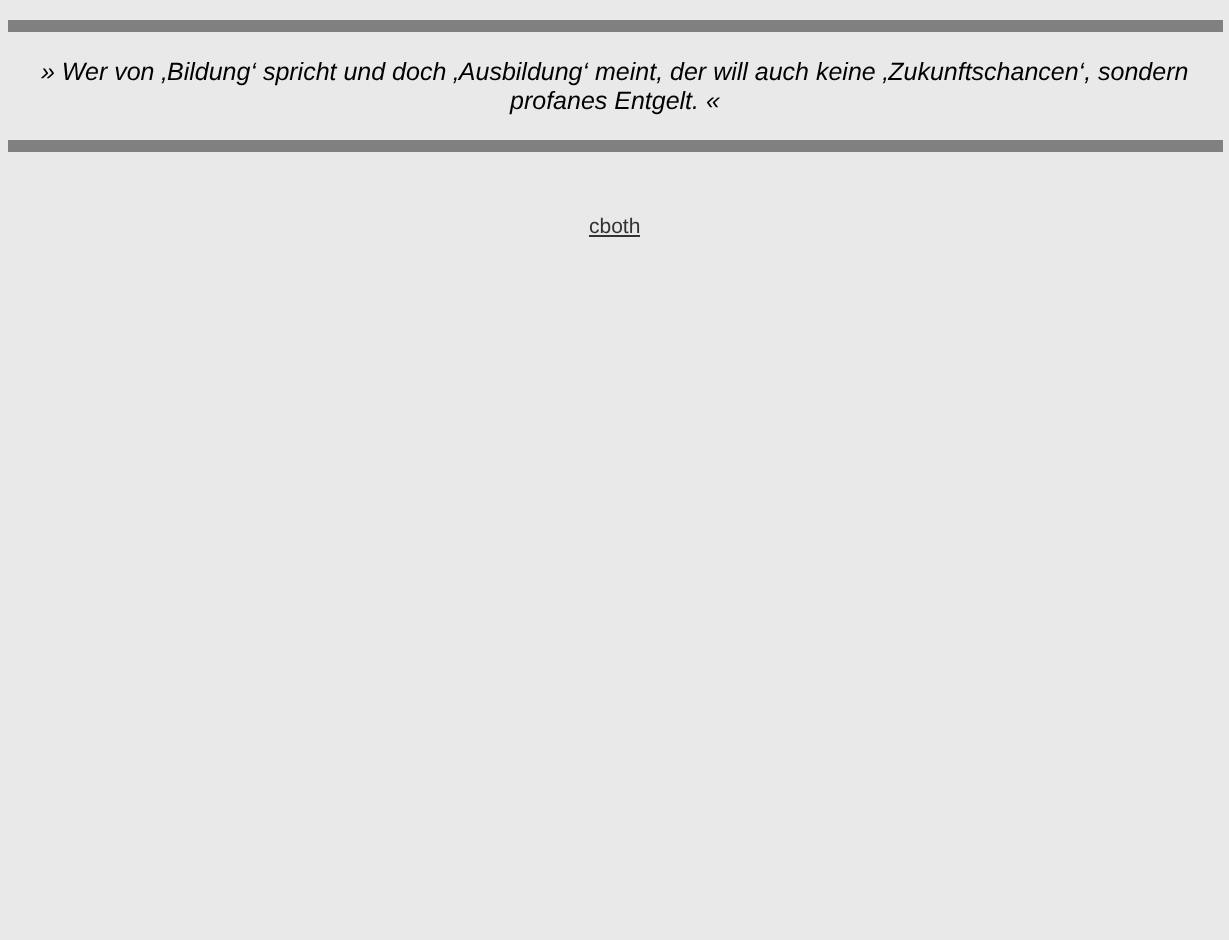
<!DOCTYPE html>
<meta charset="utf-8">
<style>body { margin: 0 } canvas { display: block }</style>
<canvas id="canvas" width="1229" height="940"></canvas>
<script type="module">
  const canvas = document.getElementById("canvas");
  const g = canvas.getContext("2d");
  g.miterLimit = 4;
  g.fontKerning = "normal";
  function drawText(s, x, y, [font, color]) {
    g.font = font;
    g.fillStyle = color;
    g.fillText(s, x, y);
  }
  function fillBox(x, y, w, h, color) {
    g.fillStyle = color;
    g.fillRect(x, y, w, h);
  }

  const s1 = ["italic 25px Liberation Sans", "#000000"];
  const s2 = ["21px Liberation Sans", "#333333"];

  fillBox(0, 0, 1229, 940, "#E9E9E9");
  fillBox(8, 20, 1215, 12, "#808080");
  drawText("» Wer von ‚Bildung‘ spricht und doch ‚Ausbildung‘ meint, der will auch keine ‚Zukunftschancen‘, sondern", 41, 80, s1);
  drawText("profanes Entgelt. «", 510, 109, s1);
  fillBox(8, 140, 1215, 12, "#808080");
  drawText("cboth", 589, 233, s2);
  fillBox(589, 235, 51, 2, "#333333");
</script>
